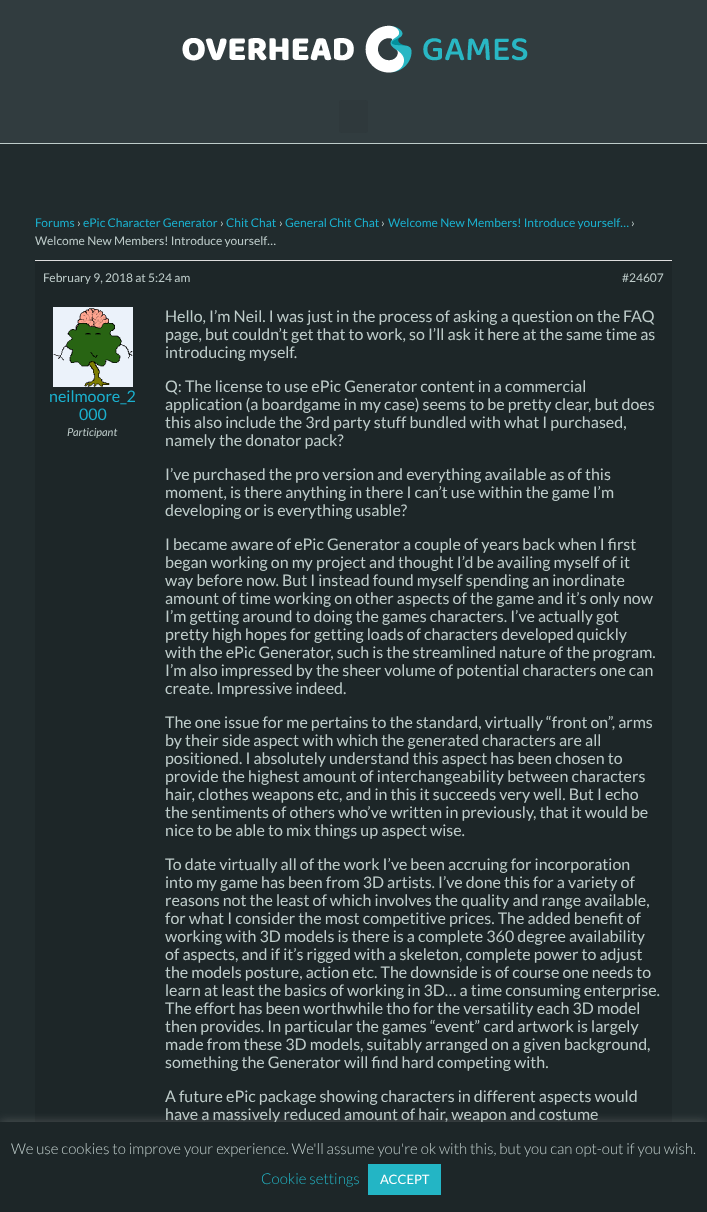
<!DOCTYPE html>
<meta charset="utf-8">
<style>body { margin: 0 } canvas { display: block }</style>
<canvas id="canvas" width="707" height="1212"></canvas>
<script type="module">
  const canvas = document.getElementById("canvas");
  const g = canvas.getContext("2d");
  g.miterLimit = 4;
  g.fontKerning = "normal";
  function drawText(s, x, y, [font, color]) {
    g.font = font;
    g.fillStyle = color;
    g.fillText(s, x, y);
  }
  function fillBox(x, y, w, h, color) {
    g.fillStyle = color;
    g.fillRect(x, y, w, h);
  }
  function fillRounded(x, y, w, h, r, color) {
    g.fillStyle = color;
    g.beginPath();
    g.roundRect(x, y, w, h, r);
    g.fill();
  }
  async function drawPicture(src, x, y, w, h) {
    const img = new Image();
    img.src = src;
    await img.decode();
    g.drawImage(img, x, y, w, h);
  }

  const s1 = ["12px Lato", "#1BB0CE"];
  const s2 = ["12px Lato", "#BECCCA"];
  const s3 = ["16px Lato", "#1BB0CE"];
  const s4 = ["italic 11px Lato", "#BECCCA"];
  const s5 = ["16px Lato", "#BECCCA"];
  const s6 = ["300 15px Lato", "#BECCCA"];
  const s7 = ["300 15px Lato", "#23B5C5"];
  const s8 = ["13px Lato", "#FFFFFF"];

  fillBox(0, 0, 707, 1212, "#212B2D");
  fillBox(0, 0, 707, 143, "#313C3F");
  fillBox(0, 143, 707, 1, "#BECCCA");
  await drawPicture("pic1.png", 182, 25, 346, 48);
  fillRounded(339, 100, 29, 33, 3, "#2F393C");
  drawText("Forums", 35, 227, s1);
  drawText("›", 77, 227, s2);
  drawText("ePic Character Generator", 83, 227, s1);
  drawText("›", 220, 227, s2);
  drawText("Chit Chat", 226, 227, s1);
  drawText("›", 279, 227, s2);
  drawText("General Chit Chat", 285, 227, s1);
  drawText("›", 381, 227, s2);
  drawText("Welcome New Members! Introduce yourself…", 388, 227, s1);
  drawText("›", 631, 227, s2);
  drawText("Welcome New Members! Introduce yourself…", 35, 245, s2);
  fillBox(35, 261, 637, 861, "#1D2628");
  fillBox(35, 260, 637, 1, "#DDDDDD");
  drawText("February 9, 2018 at 5:24 am", 43, 282, s2);
  drawText("#24607", 622, 282, s2);
  await drawPicture("pic2.png", 53, 307, 80, 80);
  drawText("neilmoore_2", 49, 402, s3);
  drawText("000", 79, 420, s3);
  drawText("Participant", 67, 436, s4);
  drawText("Hello, I’m Neil. I was just in the process of asking a question on the FAQ", 165, 322, s5);
  drawText("page, but couldn’t get that to work, so I’ll ask it here at the same time as", 165, 340, s5);
  drawText("introducing myself.", 165, 358, s5);
  drawText("Q: The license to use ePic Generator content in a commercial", 165, 392, s5);
  drawText("application (a boardgame in my case) seems to be pretty clear, but does", 165, 410, s5);
  drawText("this also include the 3rd party stuff bundled with what I purchased,", 165, 428, s5);
  drawText("namely the donator pack?", 165, 446, s5);
  drawText("I’ve purchased the pro version and everything available as of this", 165, 480, s5);
  drawText("moment, is there anything in there I can’t use within the game I’m", 165, 498, s5);
  drawText("developing or is everything usable?", 165, 516, s5);
  drawText("I became aware of ePic Generator a couple of years back when I first", 165, 550, s5);
  drawText("began working on my project and thought I’d be availing myself of it", 165, 568, s5);
  drawText("way before now. But I instead found myself spending an inordinate", 165, 586, s5);
  drawText("amount of time working on other aspects of the game and it’s only now", 165, 604, s5);
  drawText("I’m getting around to doing the games characters. I’ve actually got", 165, 622, s5);
  drawText("pretty high hopes for getting loads of characters developed quickly", 165, 640, s5);
  drawText("with the ePic Generator, such is the streamlined nature of the program.", 165, 658, s5);
  drawText("I’m also impressed by the sheer volume of potential characters one can", 165, 676, s5);
  drawText("create. Impressive indeed.", 165, 694, s5);
  drawText("The one issue for me pertains to the standard, virtually “front on”, arms", 165, 728, s5);
  drawText("by their side aspect with which the generated characters are all", 165, 746, s5);
  drawText("positioned. I absolutely understand this aspect has been chosen to", 165, 764, s5);
  drawText("provide the highest amount of interchangeability between characters", 165, 782, s5);
  drawText("hair, clothes weapons etc, and in this it succeeds very well. But I echo", 165, 800, s5);
  drawText("the sentiments of others who’ve written in previously, that it would be", 165, 818, s5);
  drawText("nice to be able to mix things up aspect wise.", 165, 836, s5);
  drawText("To date virtually all of the work I’ve been accruing for incorporation", 165, 870, s5);
  drawText("into my game has been from 3D artists. I’ve done this for a variety of", 165, 888, s5);
  drawText("reasons not the least of which involves the quality and range available,", 165, 906, s5);
  drawText("for what I consider the most competitive prices. The added benefit of", 165, 924, s5);
  drawText("working with 3D models is there is a complete 360 degree availability", 165, 942, s5);
  drawText("of aspects, and if it’s rigged with a skeleton, complete power to adjust", 165, 960, s5);
  drawText("the models posture, action etc. The downside is of course one needs to", 165, 978, s5);
  drawText("learn at least the basics of working in 3D… a time consuming enterprise.", 165, 996, s5);
  drawText("The effort has been worthwhile tho for the versatility each 3D model", 165, 1014, s5);
  drawText("then provides. In particular the games “event” card artwork is largely", 165, 1032, s5);
  drawText("made from these 3D models, suitably arranged on a given background,", 165, 1050, s5);
  drawText("something the Generator will find hard competing with.", 165, 1068, s5);
  drawText("A future ePic package showing characters in different aspects would", 165, 1102, s5);
  drawText("have a massively reduced amount of hair, weapon and costume", 165, 1120, s5);
  g.fillStyle = "rgba(172, 171, 171, 0.3)";
  g.filter = "blur(5px)";
  g.beginPath();
  g.rect(0, 1121, 707, 90);
  g.fill();
  g.filter = "none";
  fillBox(0, 1122, 707, 90, "#1D2628");
  drawText("We use cookies to improve your experience. We'll assume you're ok with this, but you can opt-out if you wish.", 11, 1154, s6);
  drawText("Cookie settings", 261, 1184, s7);
  fillBox(368, 1164, 73, 31, "#23B5C5");
  drawText("ACCEPT", 380, 1184, s8);
</script>
